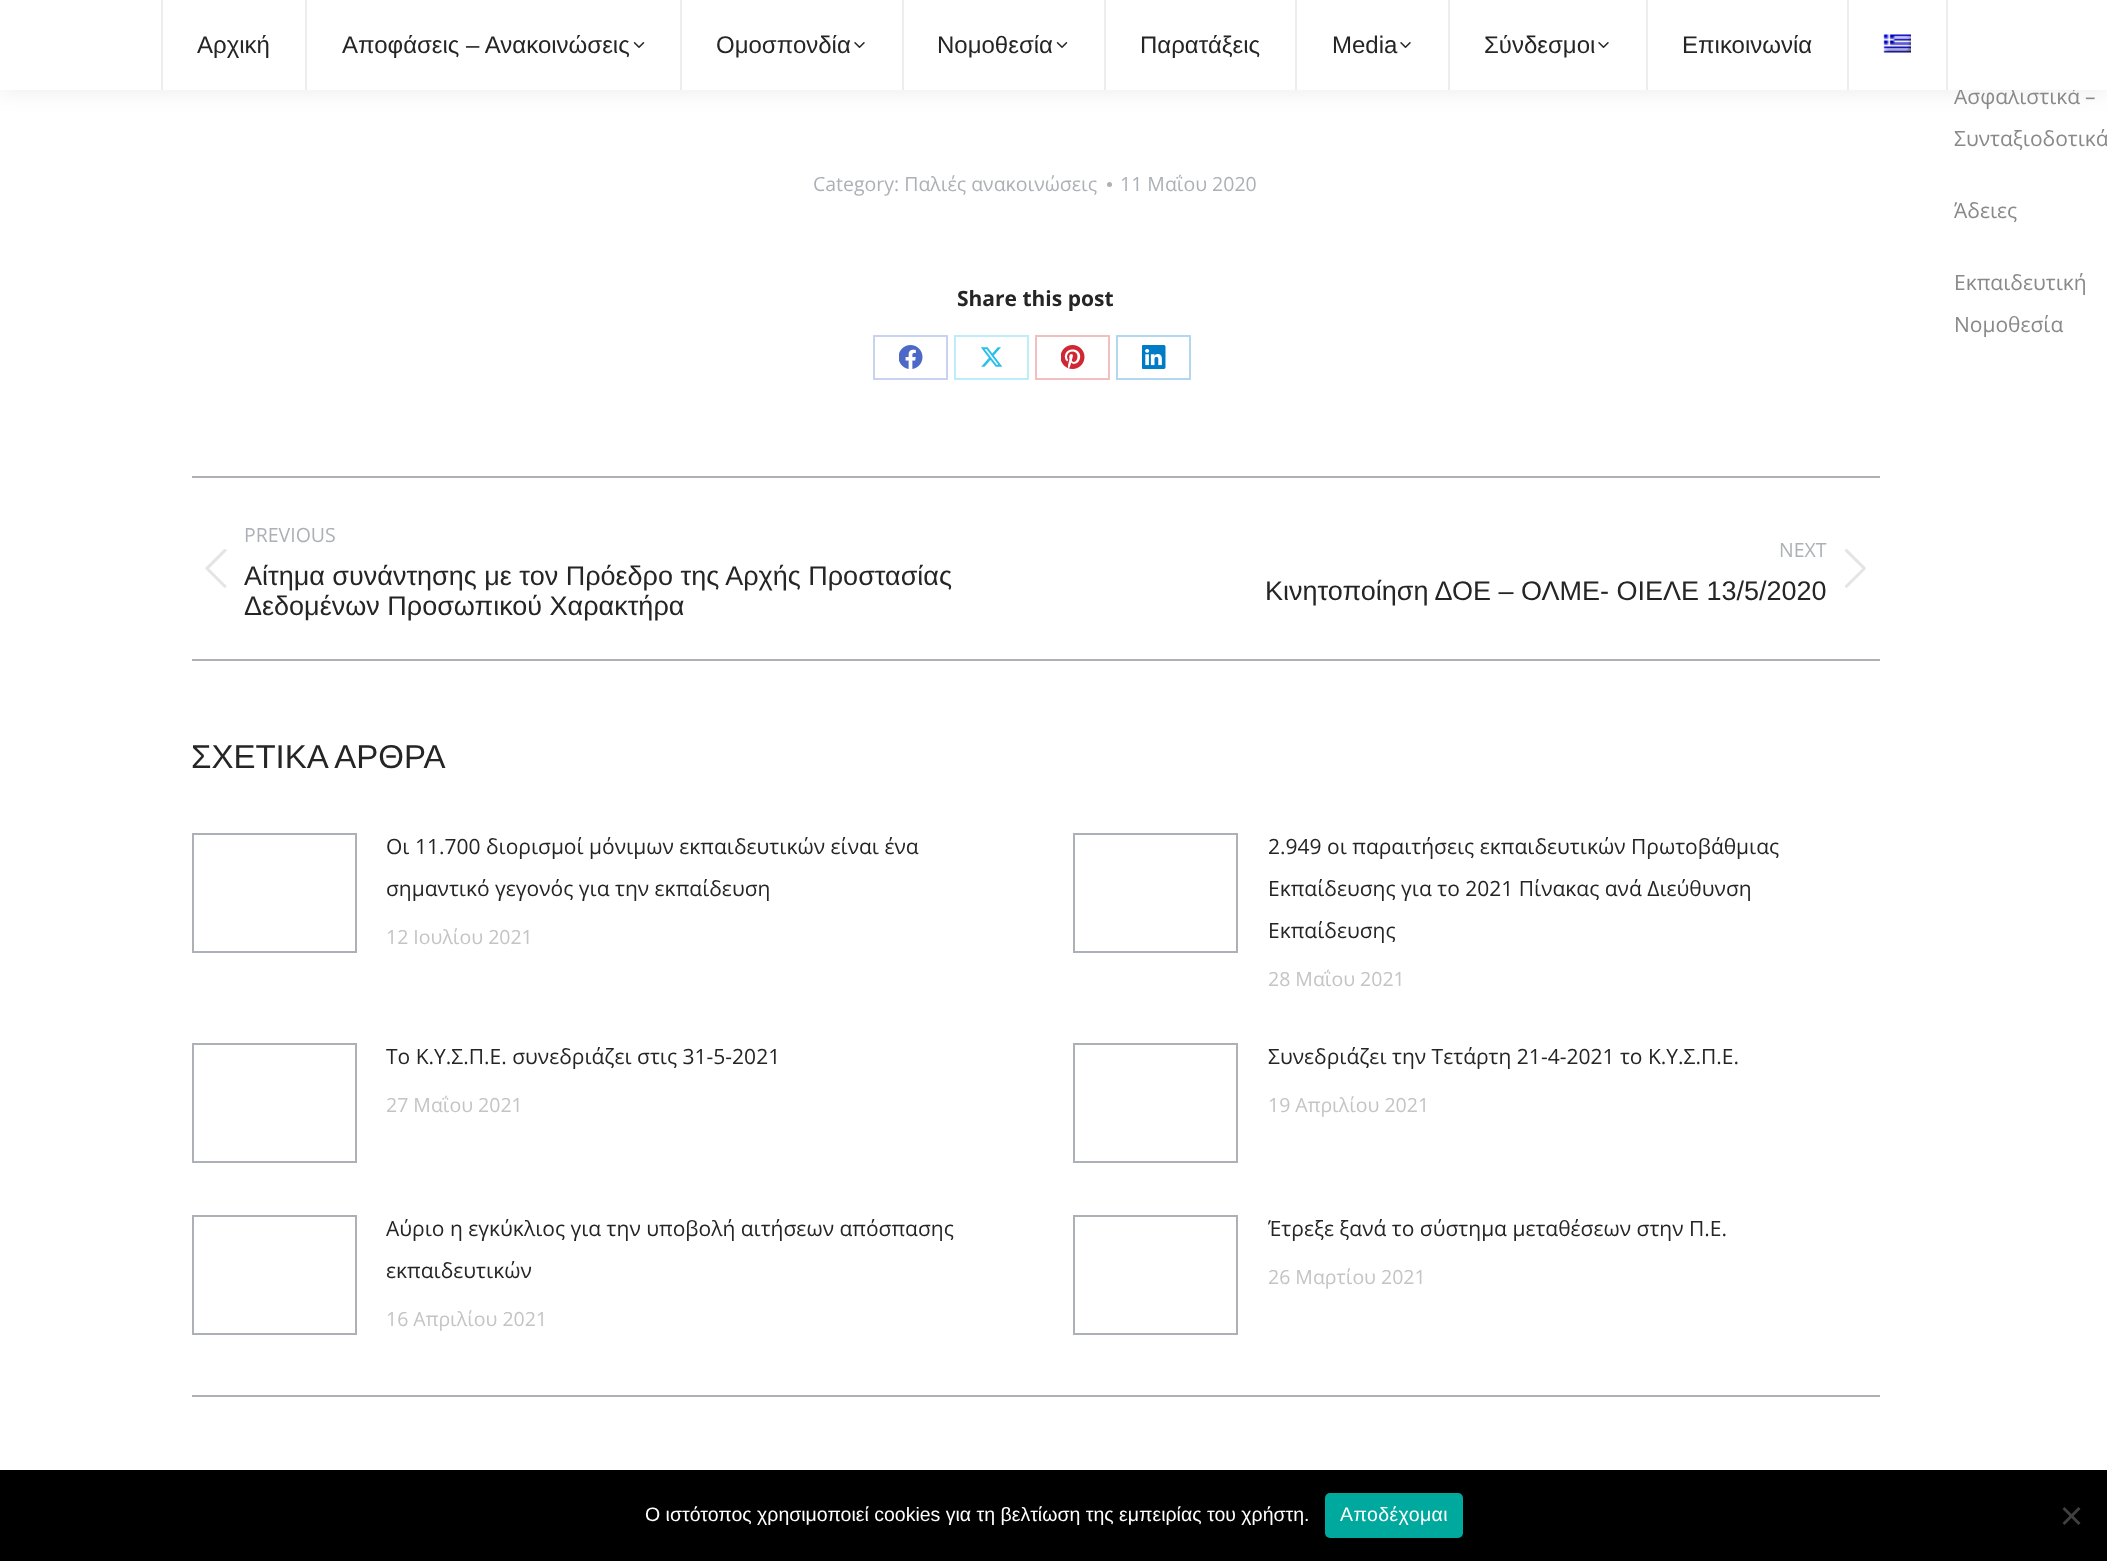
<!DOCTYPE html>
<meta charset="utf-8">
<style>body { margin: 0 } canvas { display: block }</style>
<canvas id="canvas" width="2107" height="1561"></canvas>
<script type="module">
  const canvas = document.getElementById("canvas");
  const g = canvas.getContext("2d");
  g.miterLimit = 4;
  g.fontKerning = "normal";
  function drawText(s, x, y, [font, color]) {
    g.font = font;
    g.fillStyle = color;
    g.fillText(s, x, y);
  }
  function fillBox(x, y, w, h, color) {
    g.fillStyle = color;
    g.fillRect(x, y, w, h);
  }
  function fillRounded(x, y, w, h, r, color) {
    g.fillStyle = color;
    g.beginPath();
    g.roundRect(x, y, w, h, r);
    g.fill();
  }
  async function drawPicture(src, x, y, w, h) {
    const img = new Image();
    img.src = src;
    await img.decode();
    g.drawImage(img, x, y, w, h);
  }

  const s1 = ["21px Open Sans", "#898989"];
  const s2 = ["24px Liberation Sans", "#252525"];
  const s3 = ["19.5px Open Sans", "#ADB0B6"];
  const s4 = ["bold 21px Open Sans", "#252525"];
  const s5 = ["27px Liberation Sans", "#252525"];
  const s6 = ["33px Liberation Sans", "#252525"];
  const s7 = ["21px Open Sans", "#252525"];
  const s8 = ["19.5px Open Sans", "#C4C4C4"];
  const s9 = ["21px 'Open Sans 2'", "#898989"];
  const s10 = ["19.5px Liberation Sans", "#FFFFFF"];

  fillBox(0, 0, 2107, 1561, "#FFFFFF");
  g.fillStyle = "rgba(0, 0, 0, 0.07)";
  g.filter = "blur(11px)";
  g.beginPath();
  g.rect(-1, -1, 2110, 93);
  g.fill();
  g.filter = "none";
  drawText("Ασφαλιστικά", 1954, 104, s1);
  fillBox(0, 0, 2107, 90, "#FFFFFF");
  fillBox(161, 0, 2, 90, "#EDEDED");
  drawText("Αρχική", 197, 53, s2);
  fillBox(305, 0, 2, 90, "#EDEDED");
  drawText("Αποφάσεις – Ανακοινώσεις", 342, 53, s2);
  await drawPicture("pic1.png", 633, 42, 12, 6);
  fillBox(680, 0, 2, 90, "#EDEDED");
  drawText("Ομοσπονδία", 716, 53, s2);
  await drawPicture("pic2.png", 854, 42, 11, 6);
  fillBox(902, 0, 2, 90, "#EDEDED");
  drawText("Νομοθεσία", 937, 53, s2);
  await drawPicture("pic1.png", 1056, 42, 12, 6);
  fillBox(1104, 0, 2, 90, "#EDEDED");
  drawText("Παρατάξεις", 1140, 53, s2);
  fillBox(1295, 0, 2, 90, "#EDEDED");
  drawText("Media", 1332, 53, s2);
  await drawPicture("pic2.png", 1400, 42, 11, 6);
  fillBox(1448, 0, 2, 90, "#EDEDED");
  drawText("Σύνδεσμοι", 1484, 53, s2);
  await drawPicture("pic2.png", 1598, 42, 11, 6);
  fillBox(1646, 0, 2, 90, "#EDEDED");
  drawText("Επικοινωνία", 1682, 53, s2);
  fillBox(1847, 0, 2, 90, "#EDEDED");
  await drawPicture("pic3.png", 1883, 34, 28, 19);
  fillBox(1946, 0, 2, 90, "#EDEDED");
  drawText("Category: Παλιές ανακοινώσεις", 813, 191, s3);
  g.beginPath();
  g.arc(1109.5, 184.5, 2.5, 0, Math.PI * 2);
  g.fill();
  drawText("11 Μαΐου 2020", 1120, 191, s3);
  drawText("Share this post", 957, 306, s4);
  g.strokeStyle = "#C9D2EE";
  g.lineWidth = 2;
  g.strokeRect(874, 336, 73, 43);
  await drawPicture("pic4.png", 899, 345, 24, 24);
  g.strokeStyle = "#BFECF9";
  g.strokeRect(955, 336, 73, 43);
  await drawPicture("pic5.png", 980, 347, 23, 20);
  g.strokeStyle = "#F1BFC2";
  g.strokeRect(1036, 336, 73, 43);
  await drawPicture("pic6.png", 1061, 345, 24, 24);
  g.strokeStyle = "#B3D7EE";
  g.strokeRect(1117, 336, 73, 43);
  await drawPicture("pic7.png", 1142, 345, 24, 24);
  fillBox(192, 476, 1688, 2, "#ADB0B6");
  fillBox(192, 659, 1688, 2, "#ADB0B6");
  drawText("PREVIOUS", 244, 542, s3);
  await drawPicture("pic8.png", 205, 549, 22, 39);
  drawText("Αίτημα συνάντησης με τον Πρόεδρο της Αρχής Προστασίας", 244, 585, s5);
  drawText("Δεδομένων Προσωπικού Χαρακτήρα", 244, 615, s5);
  drawText("NEXT", 1779, 557, s3);
  await drawPicture("pic9.png", 1845, 549, 21, 39);
  drawText("Κινητοποίηση ΔΟΕ – ΟΛΜΕ- ΟΙΕΛΕ 13/5/2020", 1265, 600, s5);
  fillBox(192, 1395, 1688, 2, "#ADB0B6");
  drawText("ΣΧΕΤΙΚΑ ΑΡΘΡΑ", 191, 768, s6);
  g.strokeStyle = "#ADB0B6";
  g.strokeRect(193, 834, 163, 118);
  drawText("Οι 11.700 διορισμοί μόνιμων εκπαιδευτικών είναι ένα", 386, 854, s7);
  drawText("σημαντικό γεγονός για την εκπαίδευση", 386, 896, s7);
  drawText("12 Ιουλίου 2021", 386, 944, s8);
  g.strokeRect(1074, 834, 163, 118);
  drawText("2.949 οι παραιτήσεις εκπαιδευτικών Πρωτοβάθμιας", 1268, 854, s7);
  drawText("Εκπαίδευσης για το 2021 Πίνακας ανά Διεύθυνση", 1268, 896, s7);
  drawText("Εκπαίδευσης", 1268, 938, s7);
  drawText("28 Μαΐου 2021", 1268, 986, s8);
  g.strokeRect(193, 1044, 163, 118);
  drawText("Το Κ.Υ.Σ.Π.Ε. συνεδριάζει στις 31-5-2021", 386, 1064, s7);
  drawText("27 Μαΐου 2021", 386, 1112, s8);
  g.strokeRect(1074, 1044, 163, 118);
  drawText("Συνεδριάζει την Τετάρτη 21-4-2021 το Κ.Υ.Σ.Π.Ε.", 1268, 1064, s7);
  drawText("19 Απριλίου 2021", 1268, 1112, s8);
  g.strokeRect(193, 1216, 163, 118);
  drawText("Αύριο η εγκύκλιος για την υποβολή αιτήσεων απόσπασης", 386, 1236, s7);
  drawText("εκπαιδευτικών", 386, 1278, s7);
  drawText("16 Απριλίου 2021", 386, 1326, s8);
  g.strokeRect(1074, 1216, 163, 118);
  drawText("Έτρεξε ξανά το σύστημα μεταθέσεων στην Π.Ε.", 1268, 1236, s7);
  drawText("26 Μαρτίου 2021", 1268, 1284, s8);
  drawText("–", 2085, 104, s9);
  drawText("Συνταξιοδοτικά", 1954, 146, s1);
  drawText("Άδειες", 1954, 218, s1);
  drawText("Εκπαιδευτική", 1954, 290, s1);
  drawText("Νομοθεσία", 1954, 332, s1);
  fillBox(0, 1470, 2107, 91, "#000000");
  drawText("Ο ιστότοπος χρησιμοποιεί cookies για τη βελτίωση της εμπειρίας του χρήστη.", 645, 1521, s10);
  fillRounded(1325, 1493, 138, 45, 5, "#00A99D");
  g.letterSpacing = "0.4px";
  drawText("Αποδέχομαι", 1340, 1521, s10);
  g.fillStyle = "#404040";
  g.beginPath();
  g.moveTo(2078.5, 1507);
  g.lineTo(2080.5, 1509);
  g.lineTo(2064.5, 1525);
  g.lineTo(2062.5, 1523);
  g.closePath();
  g.fill();
  g.beginPath();
  g.moveTo(2062.5, 1509);
  g.lineTo(2064.5, 1507);
  g.lineTo(2080.5, 1523);
  g.lineTo(2078.5, 1525);
  g.closePath();
  g.fill();
</script>
